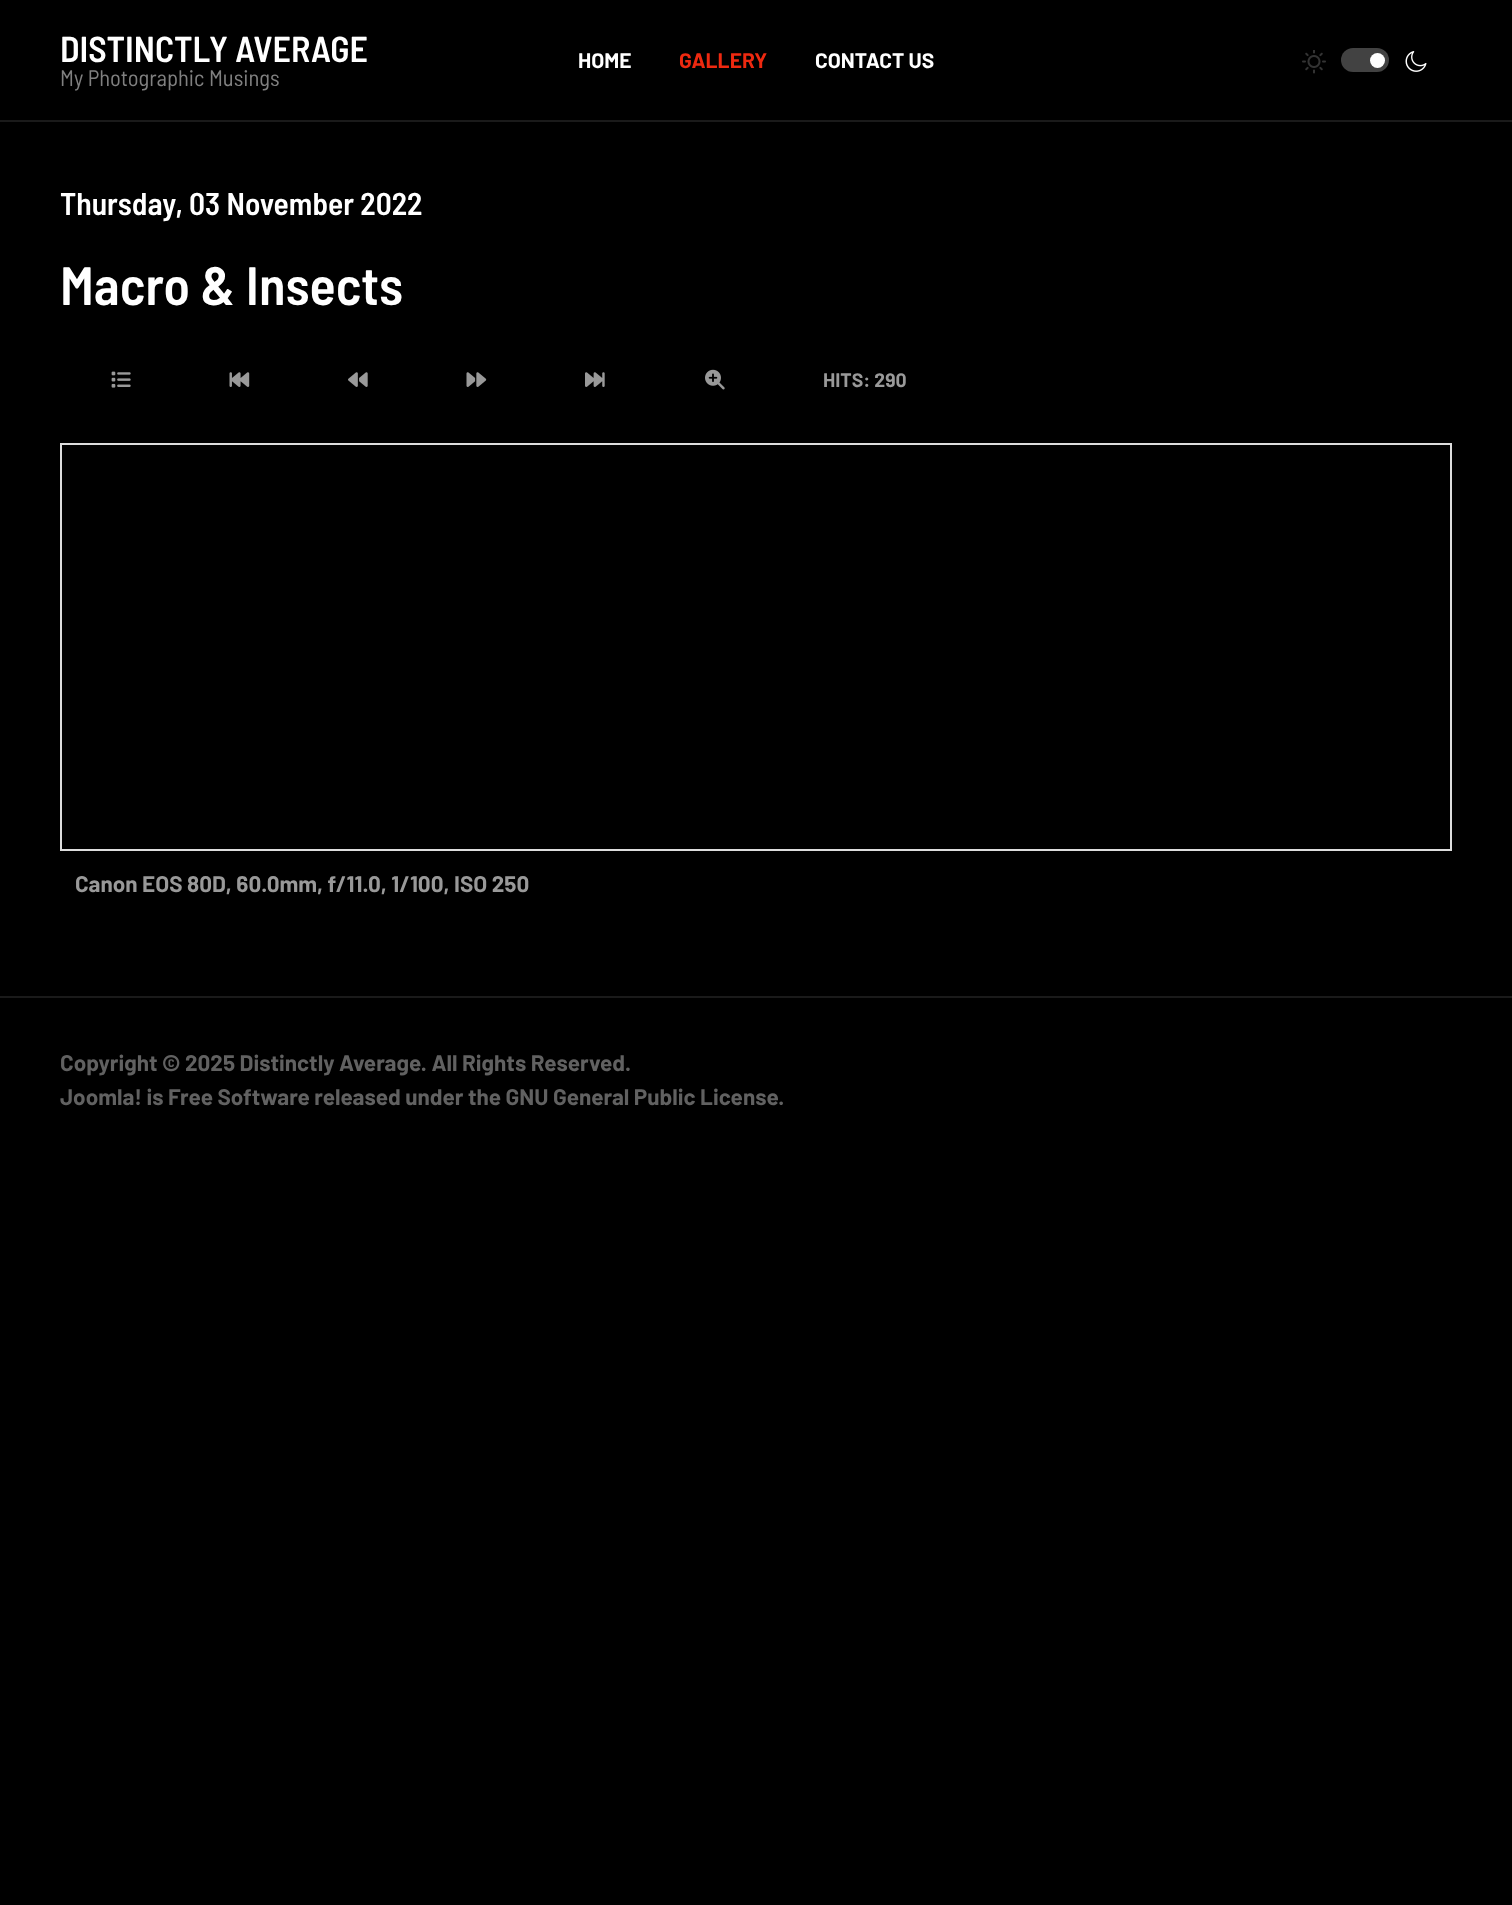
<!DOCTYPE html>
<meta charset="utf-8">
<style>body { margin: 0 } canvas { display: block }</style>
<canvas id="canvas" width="1512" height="1905"></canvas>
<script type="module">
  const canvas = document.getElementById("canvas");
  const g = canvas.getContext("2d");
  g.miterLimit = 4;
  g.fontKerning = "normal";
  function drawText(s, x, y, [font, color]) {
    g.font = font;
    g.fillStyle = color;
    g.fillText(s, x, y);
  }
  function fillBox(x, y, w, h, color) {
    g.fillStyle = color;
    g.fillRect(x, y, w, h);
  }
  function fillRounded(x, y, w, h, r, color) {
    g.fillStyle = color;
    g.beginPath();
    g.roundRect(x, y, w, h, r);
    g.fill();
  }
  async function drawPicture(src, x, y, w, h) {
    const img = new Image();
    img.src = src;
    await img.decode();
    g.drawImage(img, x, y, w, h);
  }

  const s1 = ["600 36px Barlow Semi Condensed", "#FFFFFF"];
  const s2 = ["22.5px Barlow Semi Condensed", "#808080"];
  const s3 = ["bold 21px Barlow", "#FFFFFF"];
  const s4 = ["bold 21px Barlow", "#EE2910"];
  const s5 = ["600 31.5px Barlow Semi Condensed", "#FFFFFF"];
  const s6 = ["600 54px Barlow Semi Condensed", "#FFFFFF"];
  const s7 = ["bold 19.5px Barlow", "#999999"];
  const s8 = ["bold 22.5px Barlow", "#999999"];
  const s9 = ["bold 22.5px Barlow", "#616161"];

  fillBox(0, 0, 1512, 1905, "#000000");
  fillBox(0, 120, 1512, 2, "#1A1A1A");
  drawText("DISTINCTLY AVERAGE", 60, 62, s1);
  drawText("My Photographic Musings", 60, 86, s2);
  drawText("HOME", 578, 68, s3);
  drawText("GALLERY", 679, 68, s4);
  drawText("CONTACT US", 815, 68, s3);
  await drawPicture("pic1.png", 1302, 50, 24, 24);
  fillRounded(1341, 48, 48, 24, 12, "#424242");
  g.fillStyle = "#FFFFFF";
  g.beginPath();
  g.arc(1377.5, 60.5, 7.5, 0, Math.PI * 2);
  g.fill();
  await drawPicture("pic2.png", 1405, 51, 22, 21);
  drawText("Thursday, 03 November 2022", 60, 215, s5);
  drawText("Macro & Insects", 60, 305, s6);
  await drawPicture("pic3.png", 111, 371, 20, 17);
  await drawPicture("pic4.png", 229, 372, 21, 15);
  await drawPicture("pic5.png", 348, 372, 20, 15);
  await drawPicture("pic6.png", 466, 372, 21, 15);
  await drawPicture("pic7.png", 585, 372, 20, 15);
  await drawPicture("pic8.png", 705, 369, 20, 21);
  drawText("HITS: 290", 823, 387, s7);
  g.strokeStyle = "#DDDDDD";
  g.lineWidth = 2;
  g.strokeRect(61, 444, 1390, 406);
  drawText("Canon EOS 80D, 60.0mm, f/11.0, 1/100, ISO 250", 75, 892, s8);
  fillBox(0, 996, 1512, 2, "#1A1A1A");
  drawText("Copyright © 2025 Distinctly Average. All Rights Reserved.", 60, 1071, s9);
  drawText("Joomla! is Free Software released under the GNU General Public License.", 60, 1105, s9);
</script>
